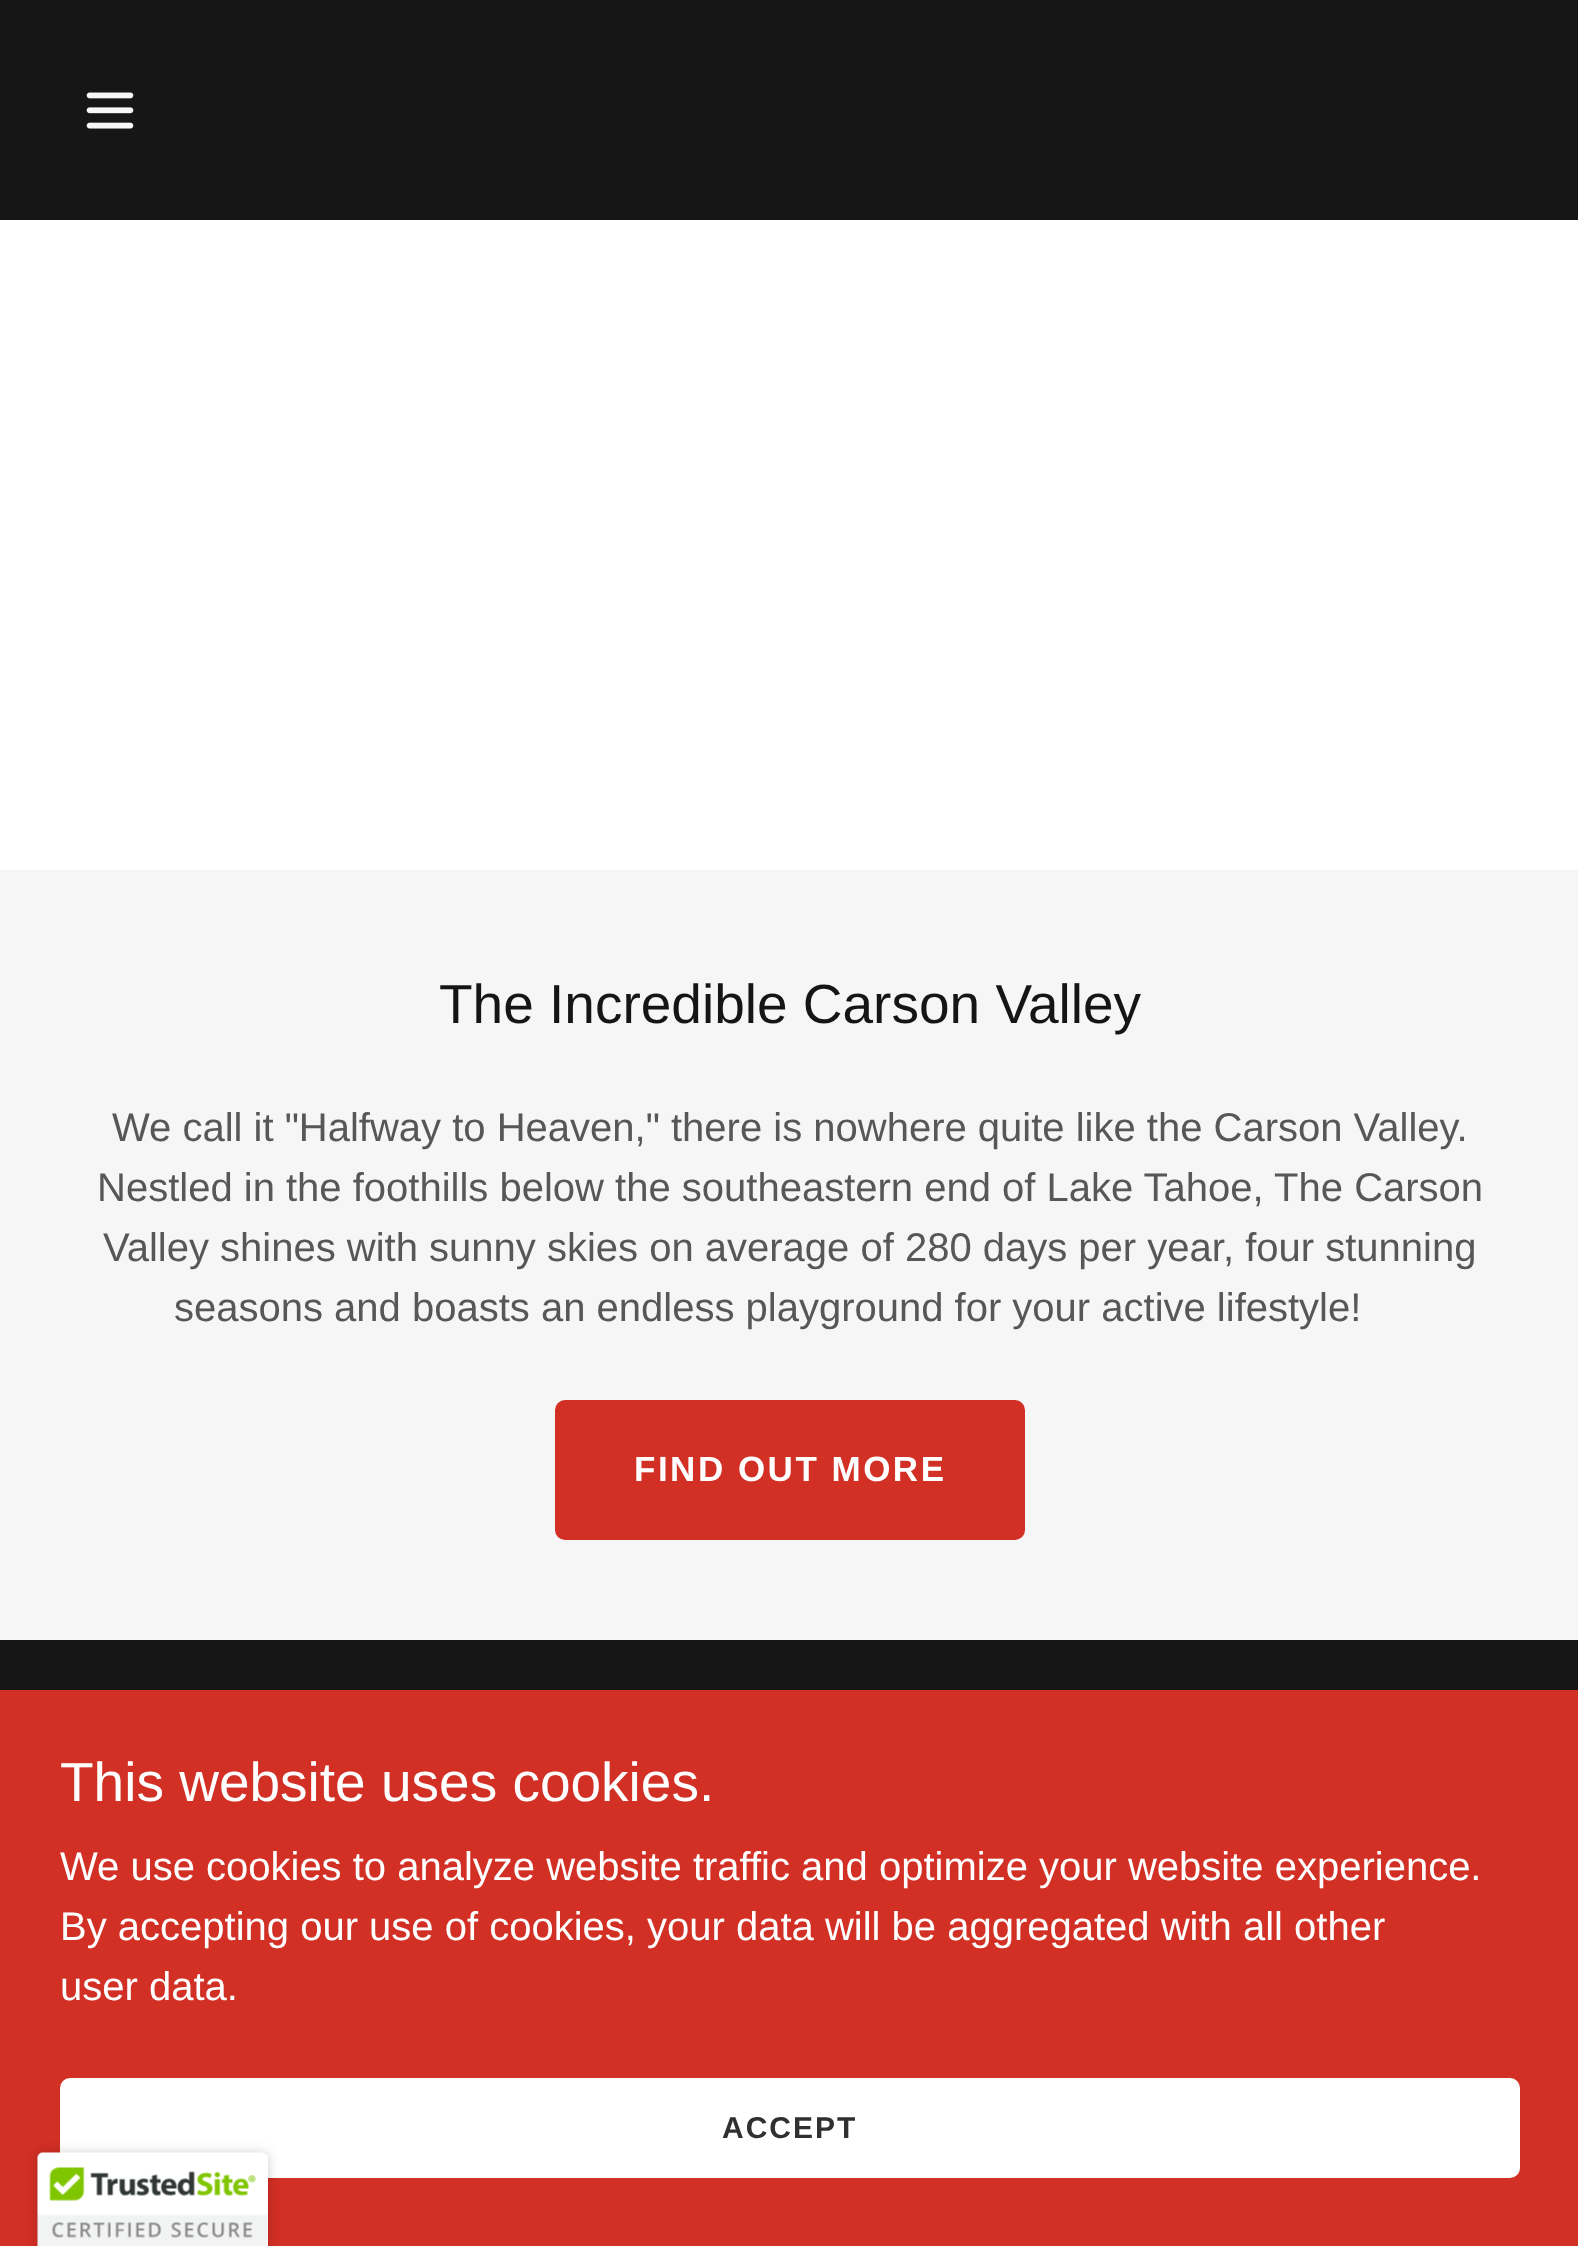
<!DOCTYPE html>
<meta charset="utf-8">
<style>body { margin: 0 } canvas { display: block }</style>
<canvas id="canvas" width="1578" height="2246"></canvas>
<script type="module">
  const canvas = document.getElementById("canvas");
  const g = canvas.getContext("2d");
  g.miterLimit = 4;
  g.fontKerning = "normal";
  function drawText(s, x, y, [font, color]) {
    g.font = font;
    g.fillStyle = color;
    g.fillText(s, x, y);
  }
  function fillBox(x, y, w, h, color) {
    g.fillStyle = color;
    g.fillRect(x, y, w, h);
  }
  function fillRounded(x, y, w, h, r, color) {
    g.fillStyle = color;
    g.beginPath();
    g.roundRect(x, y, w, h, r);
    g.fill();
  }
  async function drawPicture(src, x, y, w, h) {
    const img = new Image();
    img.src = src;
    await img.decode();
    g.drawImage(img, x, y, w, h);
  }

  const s1 = ["55px Liberation Sans", "#151515"];
  const s2 = ["40px Liberation Sans", "#575757"];
  const s3 = ["bold 35px Liberation Sans", "#FFFFFF"];
  const s4 = ["55px Liberation Sans", "#FFFFFF"];
  const s5 = ["40px Liberation Sans", "#FFFFFF"];
  const s6 = ["bold 30px Liberation Sans", "#303030"];

  fillBox(0, 0, 1578, 2246, "#161616");
  await drawPicture("pic1.png", 86, 92, 48, 37);
  fillBox(0, 220, 1578, 650, "#FFFFFF");
  fillBox(0, 870, 1578, 770, "#F6F6F6");
  drawText("The Incredible Carson Valley", 439, 1023, s1);
  drawText("We call it \"Halfway to Heaven,\" there is nowhere quite like the Carson Valley.", 112, 1141, s2);
  drawText("Nestled in the foothills below the southeastern end of Lake Tahoe, The Carson", 97, 1201, s2);
  drawText("Valley shines with sunny skies on average of 280 days per year, four stunning", 103, 1261, s2);
  drawText("seasons and boasts an endless playground for your active lifestyle!", 174, 1321, s2);
  fillRounded(555, 1400, 470, 140, 10, "#D22F25");
  g.letterSpacing = "2.5px";
  drawText("FIND OUT MORE", 634, 1481, s3);
  fillBox(0, 1690, 1578, 556, "#D22F25");
  g.letterSpacing = "0px";
  drawText("This website uses cookies.", 60, 1801, s4);
  drawText("We use cookies to analyze website traffic and optimize your website experience.", 60, 1880, s5);
  drawText("By accepting our use of cookies, your data will be aggregated with all other", 60, 1940, s5);
  drawText("user data.", 60, 2000, s5);
  fillRounded(60, 2078, 1460, 100, 10, "#FFFFFF");
  g.letterSpacing = "2px";
  drawText("ACCEPT", 722, 2138, s6);
  g.fillStyle = "rgba(0, 0, 0, 0.2)";
  g.filter = "blur(6px)";
  g.beginPath();
  g.roundRect(38, 2153, 230, 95, 5);
  g.fill();
  g.filter = "none";
  g.fillStyle = "#FFFFFF";
  g.beginPath();
  g.moveTo(43, 2153);
  g.lineTo(263, 2153);
  g.bezierCurveTo(266, 2153, 268, 2155, 268, 2158);
  g.lineTo(268, 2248);
  g.lineTo(38, 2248);
  g.lineTo(38, 2158);
  g.bezierCurveTo(38, 2155, 40, 2153, 43, 2153);
  g.closePath();
  g.fill();
  await drawPicture("pic2.png", 37, 2152, 231, 94);
</script>
